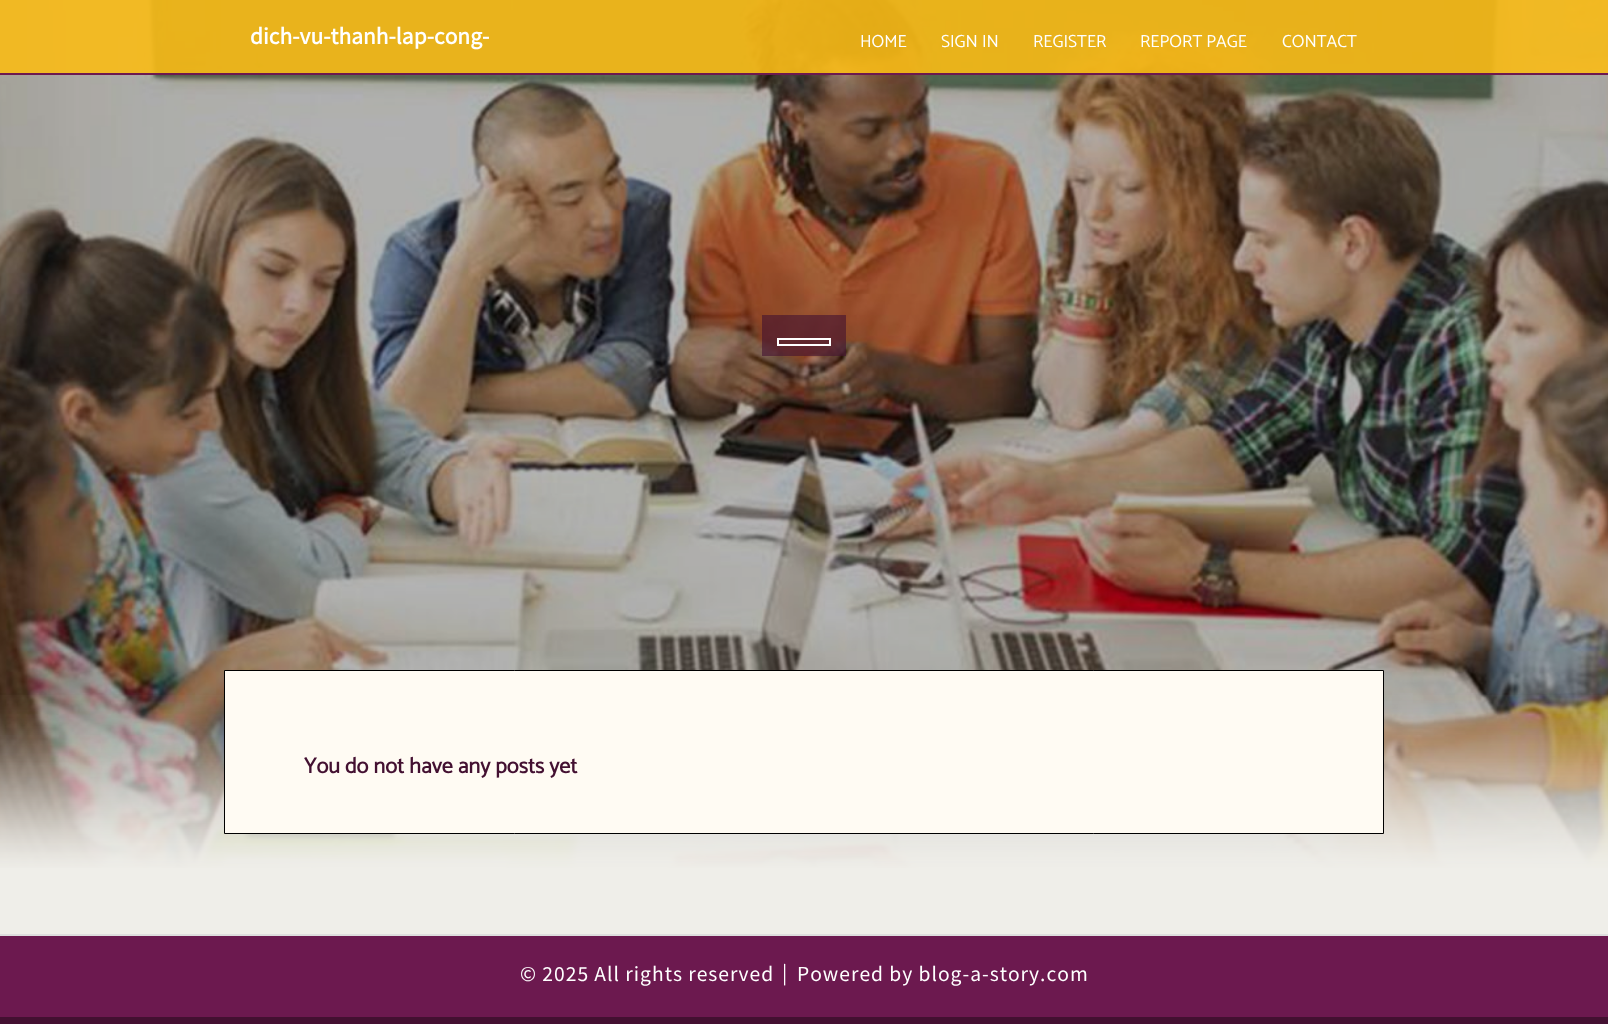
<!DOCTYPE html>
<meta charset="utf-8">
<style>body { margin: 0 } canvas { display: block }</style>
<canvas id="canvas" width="1608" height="1024"></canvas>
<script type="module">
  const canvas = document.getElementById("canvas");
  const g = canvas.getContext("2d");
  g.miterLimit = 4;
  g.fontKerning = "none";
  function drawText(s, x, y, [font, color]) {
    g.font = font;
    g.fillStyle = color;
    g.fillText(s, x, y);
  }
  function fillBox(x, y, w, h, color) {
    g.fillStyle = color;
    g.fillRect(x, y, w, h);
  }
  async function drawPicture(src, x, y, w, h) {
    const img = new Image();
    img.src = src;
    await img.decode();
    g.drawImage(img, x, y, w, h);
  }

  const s1 = ["bold 21px Noto Sans SC", "#FFFFFF"];
  const s2 = ["100 17.5px Catamaran", "#FFFFFF"];
  const s3 = ["bold 22px Catamaran", "#431031"];
  const s4 = ["100 19.25px Noto Sans SC", "#FFFFFF"];

  fillBox(0, 0, 1608, 1024, "#EFEEE9");
  await drawPicture("pic1.png", 0, 0, 1608, 868);
  fillBox(0, 0, 1608, 73, "rgba(250, 187, 22, 0.9)");
  fillBox(0, 73, 1608, 2, "#6C194F");
  drawText("dich-vu-thanh-lap-cong-", 250, 44, s1);
  drawText("HOME", 860, 47, s2);
  drawText("SIGN IN", 941, 47, s2);
  drawText("REGISTER", 1033, 47, s2);
  drawText("REPORT PAGE", 1140, 47, s2);
  drawText("CONTACT", 1282, 47, s2);
  fillBox(762, 315, 84, 41, "rgba(67, 16, 49, 0.6)");
  g.strokeStyle = "#FFFFFF";
  g.lineWidth = 2;
  g.strokeRect(778, 339, 52, 6);
  await drawPicture("pic2.png", 0, 695, 1608, 175);
  g.fillStyle = "#FFFBF3";
  g.beginPath();
  g.rect(224.5, 670.5, 1159, 163);
  g.fill();
  g.strokeStyle = "#000000";
  g.lineWidth = 1;
  g.stroke();
  drawText("You do not have any posts yet", 304, 773, s3);
  fillBox(0, 936, 1608, 81, "#6C194F");
  fillBox(0, 934, 1608, 2, "#DDDDDD");
  g.letterSpacing = "1px";
  drawText("© 2025 All rights reserved", 520, 981, s4);
  drawText("|", 782, 980, s4);
  drawText("Powered by blog-a-story.com", 797, 981, s4);
  fillBox(0, 1017, 1608, 7, "#431031");
</script>
